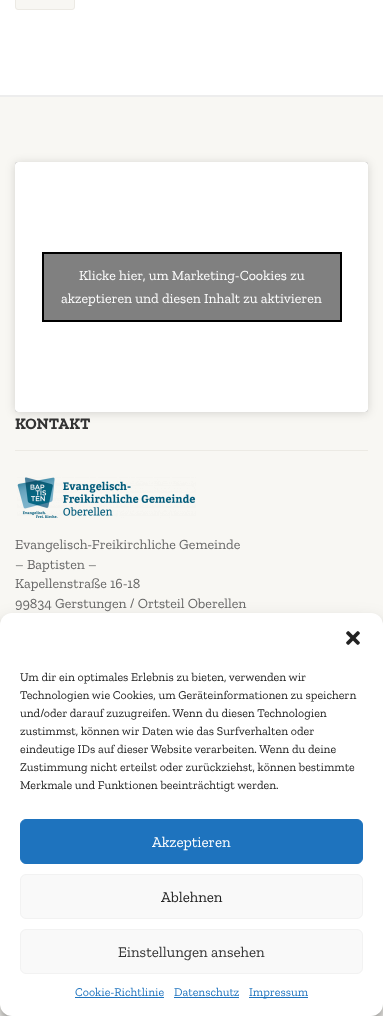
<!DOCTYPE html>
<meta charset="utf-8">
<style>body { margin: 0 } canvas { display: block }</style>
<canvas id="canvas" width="383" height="1016"></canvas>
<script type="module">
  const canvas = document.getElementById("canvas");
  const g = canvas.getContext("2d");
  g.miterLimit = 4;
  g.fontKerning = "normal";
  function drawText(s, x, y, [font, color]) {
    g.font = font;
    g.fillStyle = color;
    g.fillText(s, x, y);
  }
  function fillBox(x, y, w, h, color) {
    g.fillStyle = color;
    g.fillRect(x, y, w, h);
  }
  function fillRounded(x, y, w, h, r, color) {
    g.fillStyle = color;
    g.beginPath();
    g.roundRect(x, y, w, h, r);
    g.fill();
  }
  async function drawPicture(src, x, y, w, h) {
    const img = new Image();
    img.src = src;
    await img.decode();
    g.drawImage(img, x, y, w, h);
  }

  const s1 = ["14px Zilla Slab", "#FFFFFF"];
  const s2 = ["bold 16px Zilla Slab", "#333333"];
  const s3 = ["14px Zilla Slab", "#666666"];
  const s4 = ["12px Zilla Slab", "#222222"];
  const s5 = ["15px Zilla Slab", "#FFFFFF"];
  const s6 = ["15px Zilla Slab", "#222222"];
  const s7 = ["15px Zilla Slab", "#333333"];
  const s8 = ["12px Zilla Slab", "#1E73BE"];

  fillBox(0, 0, 383, 1016, "#FFFFFF");
  g.fillStyle = "#F8F7F3";
  g.beginPath();
  g.roundRect(15.5, -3.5, 59, 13, 2.5);
  g.fill();
  g.strokeStyle = "#ECEAE4";
  g.stroke();
  fillBox(0, 95, 383, 2, "#EDEDED");
  fillBox(0, 97, 383, 919, "#F8F7F3");
  g.fillStyle = "rgba(0, 0, 0, 0.15)";
  g.filter = "blur(5px)";
  g.beginPath();
  g.roundRect(15, 163, 353, 250, 3);
  g.fill();
  g.filter = "none";
  g.fillStyle = "rgba(0, 0, 0, 0.5)";
  g.filter = "blur(0.5px)";
  g.beginPath();
  g.roundRect(15, 162, 353, 250, 3);
  g.fill();
  g.filter = "none";
  fillRounded(15, 162, 353, 250, 3, "#FFFFFF");
  g.fillStyle = "#808080";
  g.beginPath();
  g.rect(43, 253, 298, 68);
  g.fill();
  g.strokeStyle = "#000000";
  g.lineWidth = 2;
  g.stroke();
  drawText("Klicke hier, um Marketing-Cookies zu", 79, 280, s1);
  drawText("akzeptieren und diesen Inhalt zu aktivieren", 61, 303, s1);
  drawText("KONTAKT", 15, 429, s2);
  fillBox(15, 450, 353, 1, "#ECEAE4");
  await drawPicture("pic1.png", 17, 477, 179, 41);
  drawText("Evangelisch-Freikirchliche Gemeinde", 15, 549, s3);
  drawText("– Baptisten –", 15, 569, s3);
  drawText("Kapellenstraße 16-18", 15, 588, s3);
  drawText("99834 Gerstungen / Ortsteil Oberellen", 15, 608, s3);
  g.fillStyle = "rgba(0, 0, 0, 0.23)";
  g.filter = "blur(3px)";
  g.beginPath();
  g.roundRect(0, 619, 383, 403, 12);
  g.fill();
  g.filter = "none";
  g.fillStyle = "rgba(0, 0, 0, 0.19)";
  g.filter = "blur(10px)";
  g.beginPath();
  g.roundRect(0, 623, 383, 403, 12);
  g.fill();
  g.filter = "none";
  fillRounded(0, 613, 383, 403, 12, "#FFFFFF");
  await drawPicture("pic2.png", 346, 631, 14, 14);
  drawText("Um dir ein optimales Erlebnis zu bieten, verwenden wir", 20, 681, s4);
  drawText("Technologien wie Cookies, um Geräteinformationen zu speichern", 20, 699, s4);
  drawText("und/oder darauf zuzugreifen. Wenn du diesen Technologien", 20, 717, s4);
  drawText("zustimmst, können wir Daten wie das Surfverhalten oder", 20, 735, s4);
  drawText("eindeutige IDs auf dieser Website verarbeiten. Wenn du deine", 20, 753, s4);
  drawText("Zustimmung nicht erteilst oder zurückziehst, können bestimmte", 20, 771, s4);
  drawText("Merkmale und Funktionen beeinträchtigt werden.", 20, 789, s4);
  g.fillStyle = "#1E73BE";
  g.beginPath();
  g.roundRect(20.5, 819.5, 342, 44, 5.5);
  g.fill();
  g.strokeStyle = "#1E73BE";
  g.lineWidth = 1;
  g.stroke();
  drawText("Akzeptieren", 152, 847, s5);
  g.fillStyle = "#F9F9F9";
  g.beginPath();
  g.roundRect(20.5, 874.5, 342, 44, 5.5);
  g.fill();
  g.strokeStyle = "#F2F2F2";
  g.stroke();
  drawText("Ablehnen", 161, 902, s6);
  g.fillStyle = "#F9F9F9";
  g.beginPath();
  g.roundRect(20.5, 929.5, 342, 44, 5.5);
  g.fill();
  g.stroke();
  drawText("Einstellungen ansehen", 118, 957, s7);
  drawText("Cookie-Richtlinie", 75, 996, s8);
  fillBox(75, 997, 89, 1, "#1E73BE");
  drawText("Datenschutz", 174, 996, s8);
  fillBox(174, 997, 65, 1, "#1E73BE");
  fillBox(249, 997, 59, 1, "#1E73BE");
  drawText("Impressum", 249, 996, s8);
</script>
